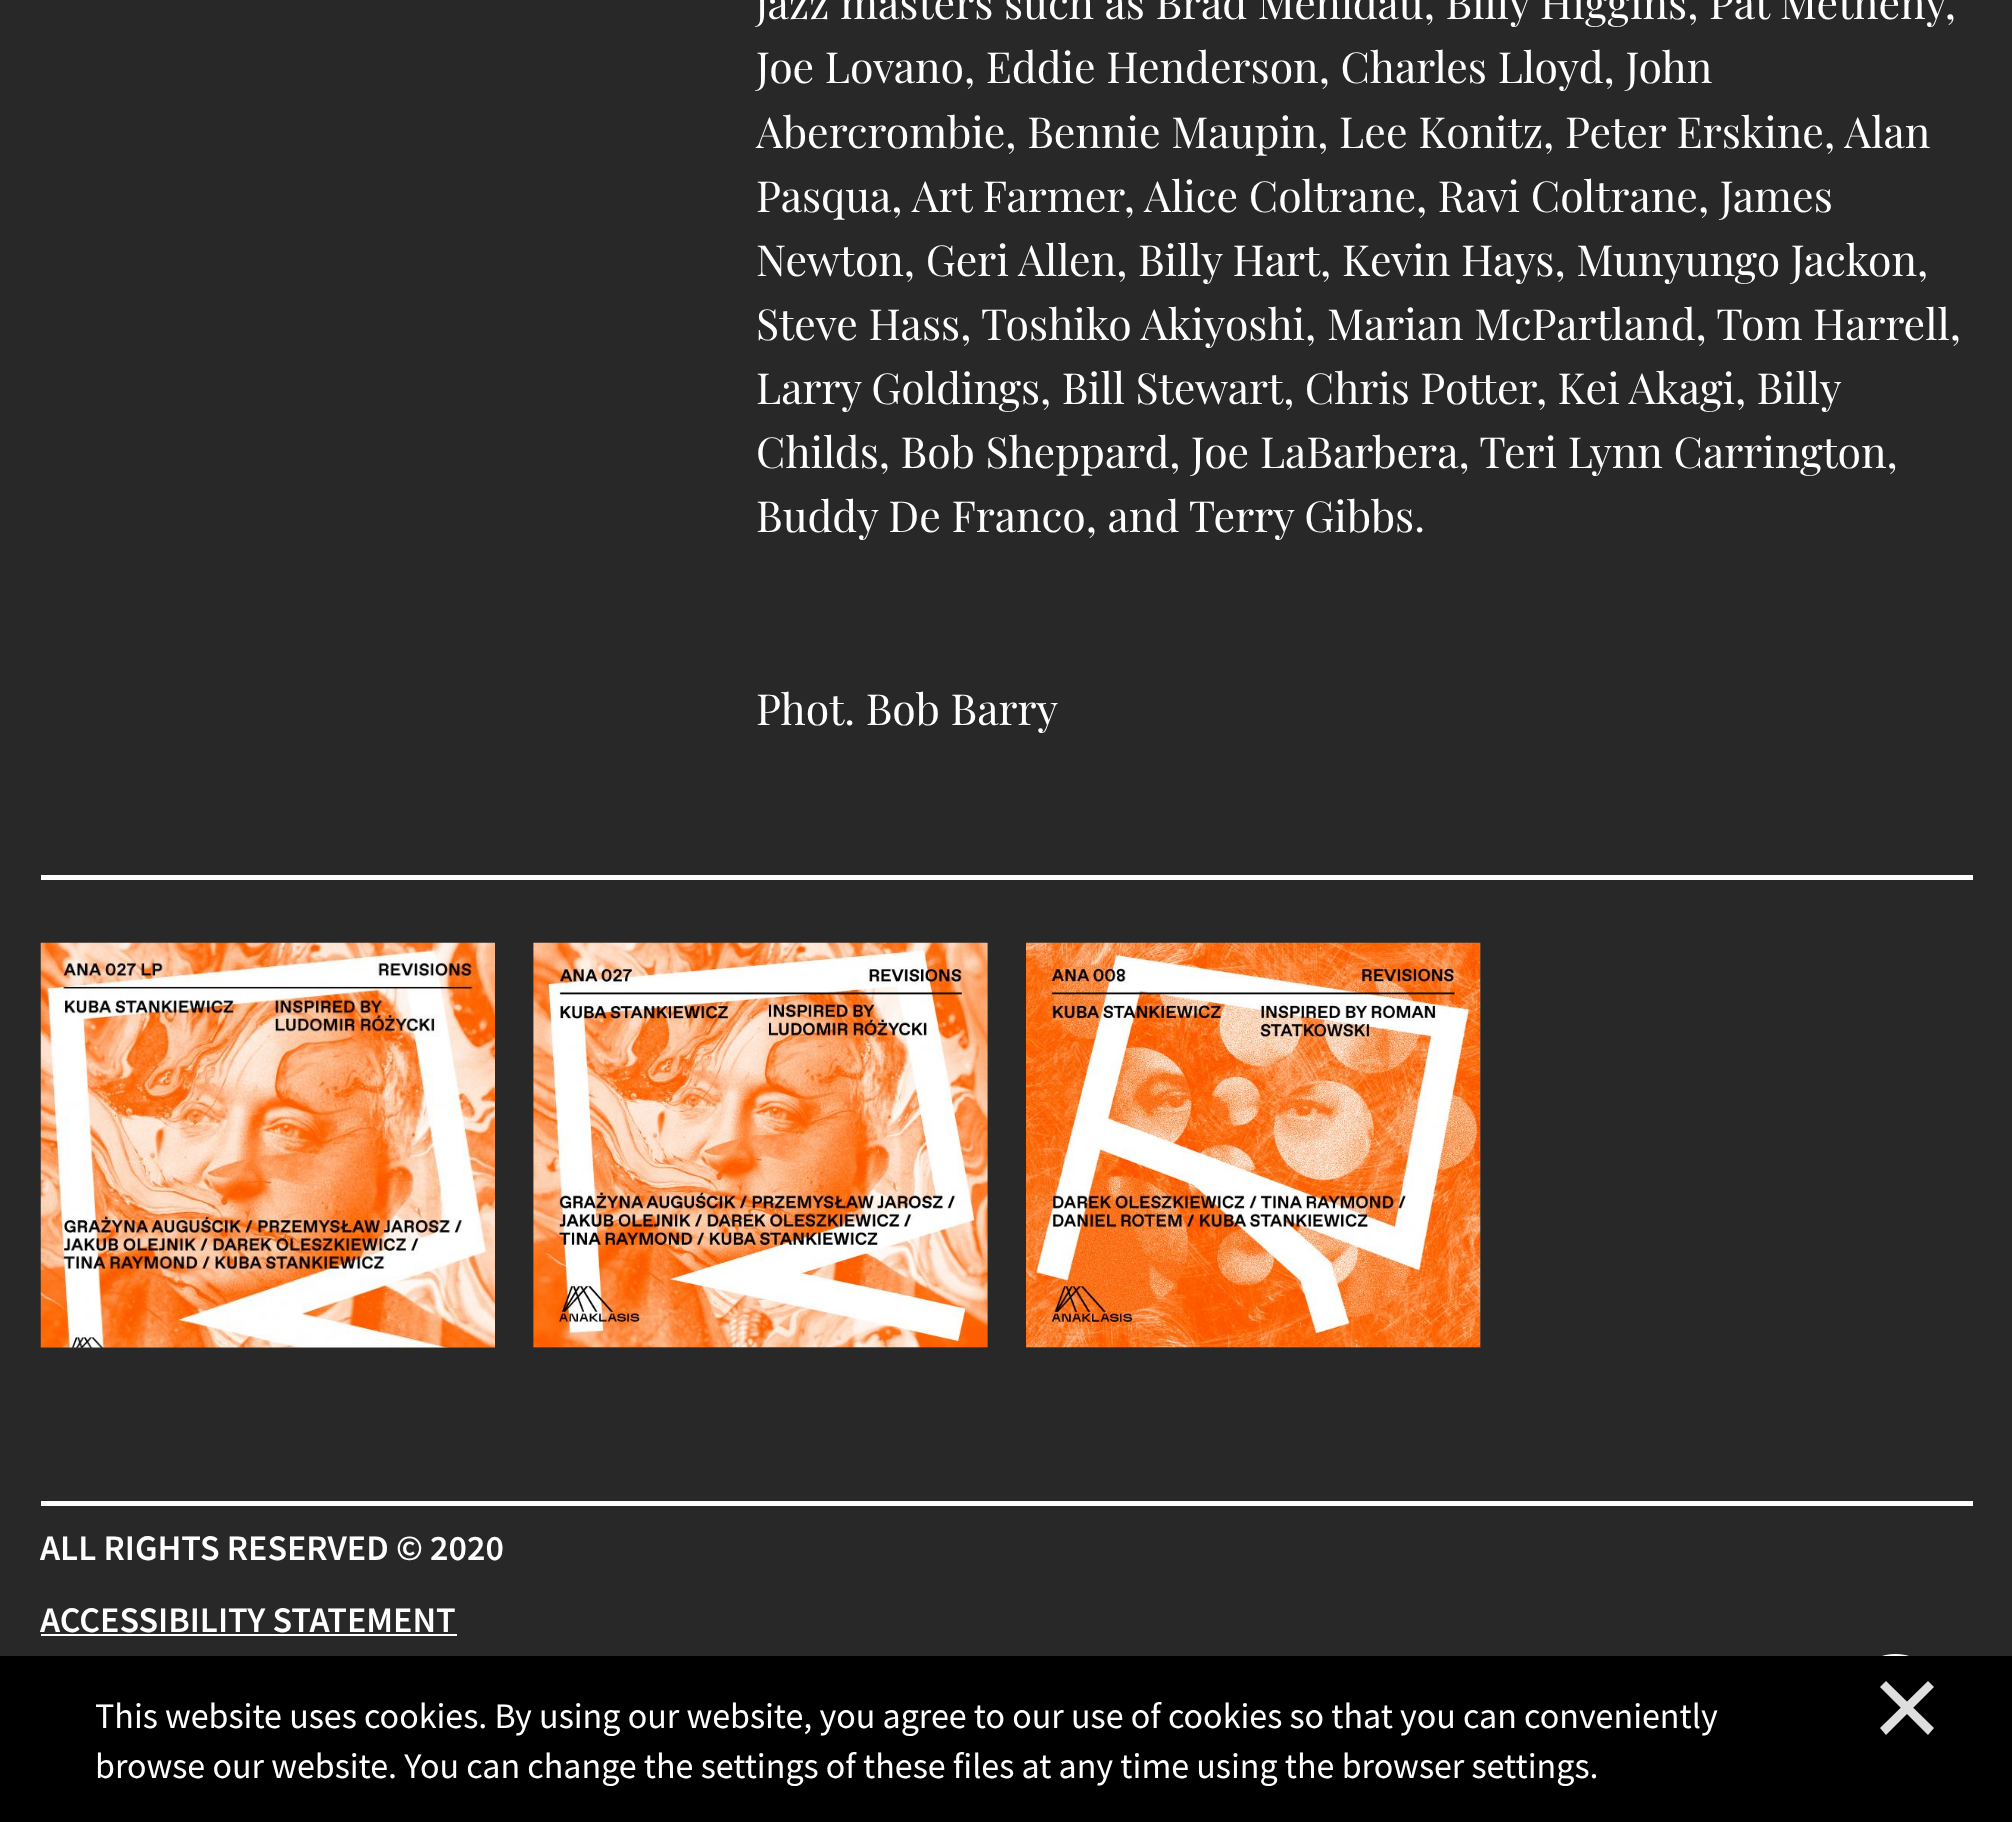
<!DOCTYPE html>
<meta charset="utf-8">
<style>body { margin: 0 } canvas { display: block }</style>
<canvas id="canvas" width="2012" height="1822"></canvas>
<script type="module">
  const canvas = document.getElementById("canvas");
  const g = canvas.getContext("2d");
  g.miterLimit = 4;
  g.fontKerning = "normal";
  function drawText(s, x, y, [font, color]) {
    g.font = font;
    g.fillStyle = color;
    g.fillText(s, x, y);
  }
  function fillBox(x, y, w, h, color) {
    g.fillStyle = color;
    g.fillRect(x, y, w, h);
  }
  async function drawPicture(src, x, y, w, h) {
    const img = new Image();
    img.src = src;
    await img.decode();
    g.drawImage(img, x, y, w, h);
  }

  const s1 = ["42.75px Playfair Display", "#FFFFFF"];
  const s2 = ["600 36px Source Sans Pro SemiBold", "#FFFFFF"];
  const s3 = ["36px Source Sans Pro", "#FFFFFF"];

  fillBox(0, 0, 2012, 1822, "#282828");
  drawText("jazz masters such as Brad Mehldau, Billy Higgins, Pat Metheny,", 756, 19, s1);
  drawText("Joe Lovano, Eddie Henderson, Charles Lloyd, John", 756, 83, s1);
  drawText("Abercrombie, Bennie Maupin, Lee Konitz, Peter Erskine, Alan", 756, 148, s1);
  drawText("Pasqua, Art Farmer, Alice Coltrane, Ravi Coltrane, James", 756, 212, s1);
  drawText("Newton, Geri Allen, Billy Hart, Kevin Hays, Munyungo Jackon,", 756, 276, s1);
  drawText("Steve Hass, Toshiko Akiyoshi, Marian McPartland, Tom Harrell,", 756, 340, s1);
  g.wordSpacing = "-0.25px";
  drawText("Larry Goldings, Bill Stewart, Chris Potter, Kei Akagi, Billy", 756, 404, s1);
  g.wordSpacing = "0px";
  drawText("Childs, Bob Sheppard, Joe LaBarbera, Teri Lynn Carrington,", 756, 468, s1);
  drawText("Buddy De Franco, and Terry Gibbs.", 756, 532, s1);
  drawText("Phot. Bob Barry", 756, 725, s1);
  fillBox(41, 875, 1932, 5, "#FFFFFF");
  fillBox(41, 1347, 454, 1, "#333333");
  await drawPicture("pic1.png", 40, 942, 455, 406);
  fillBox(533, 943, 455, 405, "#333333");
  await drawPicture("pic2.png", 533, 942, 455, 406);
  fillBox(1026, 943, 455, 405, "#333333");
  await drawPicture("pic3.png", 1026, 942, 455, 406);
  fillBox(41, 1501, 1932, 5, "#FFFFFF");
  drawText("ALL RIGHTS RESERVED © 2020", 40, 1560, s2);
  drawText("ACCESSIBILITY STATEMENT", 40, 1632, s2);
  fillBox(41, 1634, 416, 2, "#FFFFFF");
  g.beginPath();
  g.arc(1895.5, 1704.5, 50.5, 0, Math.PI * 2);
  g.fill();
  fillBox(0, 1656, 2012, 166, "#000000");
  drawText("This website uses cookies. By using our website, you agree to our use of cookies so that you can conveniently", 95, 1728, s3);
  g.fillStyle = "#DEDEDE";
  g.beginPath();
  g.moveTo(1880, 1728);
  g.lineTo(1928, 1681);
  g.lineTo(1934, 1687);
  g.lineTo(1886, 1735);
  g.closePath();
  g.fill();
  g.beginPath();
  g.moveTo(1928, 1735);
  g.lineTo(1880, 1687);
  g.lineTo(1886, 1681);
  g.lineTo(1934, 1728);
  g.closePath();
  g.fill();
  drawText("browse our website. You can change the settings of these files at any time using the browser settings.", 95, 1778, s3);
</script>
